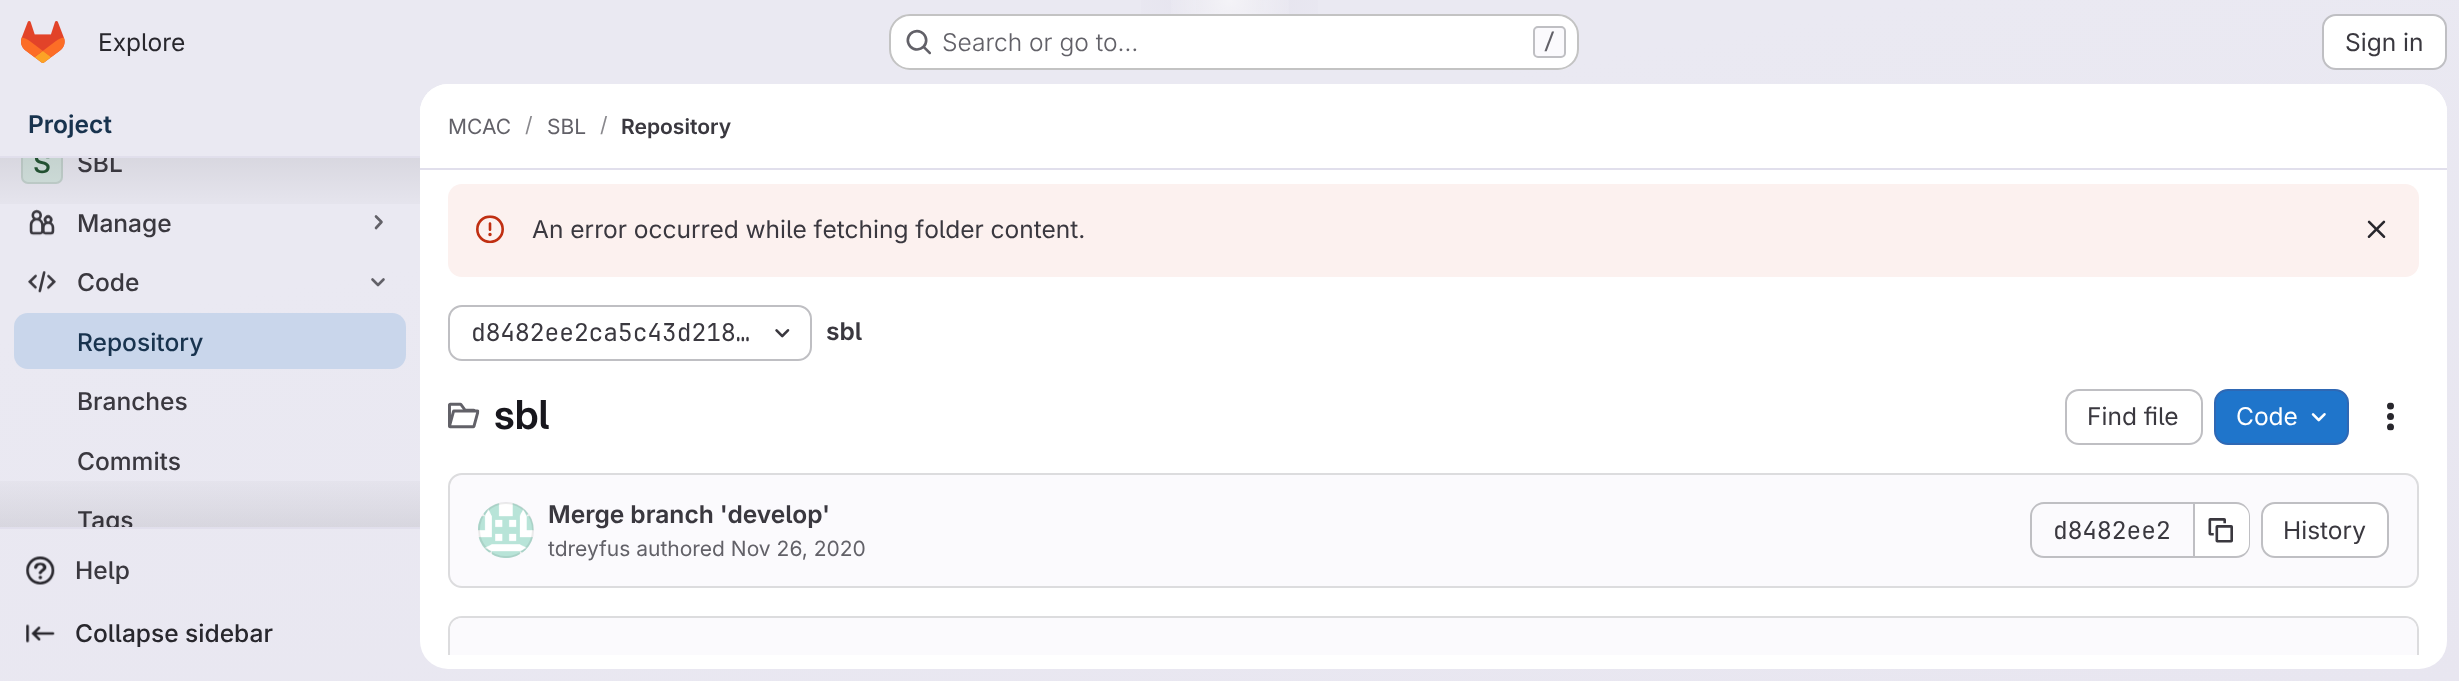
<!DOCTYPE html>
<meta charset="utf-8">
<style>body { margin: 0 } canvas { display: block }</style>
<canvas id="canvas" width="2459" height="681"></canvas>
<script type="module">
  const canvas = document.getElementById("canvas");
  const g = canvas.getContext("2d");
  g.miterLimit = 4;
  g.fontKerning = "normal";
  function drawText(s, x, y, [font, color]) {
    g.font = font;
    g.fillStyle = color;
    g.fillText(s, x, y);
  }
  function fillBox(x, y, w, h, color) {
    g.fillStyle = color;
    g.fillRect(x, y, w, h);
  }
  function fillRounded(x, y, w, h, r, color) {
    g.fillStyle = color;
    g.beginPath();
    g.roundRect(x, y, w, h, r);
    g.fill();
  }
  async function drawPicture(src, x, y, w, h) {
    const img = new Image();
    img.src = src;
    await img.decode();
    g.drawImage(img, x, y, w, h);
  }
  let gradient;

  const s1 = ["24.5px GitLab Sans", "#28272D"];
  const s2 = ["300 24.5px GitLab Sans", "#626168"];
  const s3 = ["500 21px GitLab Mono", "#626168"];
  const s4 = ["24.5px GitLab Sans", "#3A383F"];
  const s5 = ["600 24.5px 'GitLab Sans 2'", "#18334E"];
  const s6 = ["500 28px 'GitLab Sans 2'", "#225131"];
  const s7 = ["500 24.5px GitLab Sans", "#3A383F"];
  const s8 = ["500 24.5px GitLab Sans", "#18334E"];
  const s9 = ["500 24.5px GitLab Sans", "#28272D"];
  const s10 = ["21px GitLab Sans", "#626168"];
  const s11 = ["21px GitLab Sans", "#89888D"];
  const s12 = ["600 21px 'GitLab Sans 2'", "#3A383F"];
  const s13 = ["24.5px GitLab Mono", "#3A383F"];
  const s14 = ["600 24.5px 'GitLab Sans 2'", "#3A383F"];
  const s15 = ["600 40px GitLab Sans", "#18171D"];
  const s16 = ["24.5px GitLab Sans", "#FFFFFF"];

  fillBox(0, 0, 2459, 681, "#FFFFFF");
  gradient = g.createLinearGradient(1326, 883, 1135, -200);
  gradient.addColorStop(0, "#E8E6F0");
  gradient.addColorStop(0.7, "#EAE9F2");
  g.fillStyle = gradient;
  g.fillRect(0, 0, 2459, 681);
  gradient = g.createRadialGradient(1230, 0, 0, 1230, 0, 1230);
  gradient.addColorStop(0, "#E4E2ED");
  gradient.addColorStop(0.1, "rgba(228, 226, 237, 0)");
  g.fillStyle = gradient;
  g.beginPath();
  g.rect(1141, 0, 177, 14);
  g.save();
  g.clip();
  g.scale(1, 683 / 1230);
  g.fillRect(0, 0, 2459, 1227);
  g.restore();
  gradient = g.createRadialGradient(1230, 0, 0, 1230, 0, 1230);
  gradient.addColorStop(0, "#E4E2EC");
  gradient.addColorStop(0.07, "rgba(228, 226, 236, 0)");
  g.fillStyle = gradient;
  g.beginPath();
  g.rect(1196, 0, 68, 12);
  g.save();
  g.clip();
  g.scale(1, 683 / 1230);
  g.fillRect(0, 0, 2459, 1227);
  g.restore();
  gradient = g.createRadialGradient(1230, 0, 0, 1230, 0, 1407);
  gradient.addColorStop(0, "rgba(255, 255, 255, 0.6)");
  gradient.addColorStop(0.05, "rgba(255, 255, 255, 0)");
  g.fillStyle = gradient;
  g.fillRect(1171, 0, 118, 14);
  await drawPicture("pic1.png", 21, 21, 44, 42);
  drawText("Explore", 98, 51, s1);
  fillRounded(889, 14, 690, 56, 21, "#FFFFFF");
  g.beginPath();
  g.roundRect(890, 15, 688, 54, 20);
  g.strokeStyle = "rgba(5, 5, 6, 0.24)";
  g.lineWidth = 2;
  g.stroke();
  await drawPicture("pic2.png", 906, 29, 25, 26);
  drawText("Search or go to…", 942, 51, s2);
  g.fillStyle = "#FBFAFD";
  g.beginPath();
  g.roundRect(1534, 27, 31, 30, 4);
  g.fill();
  g.strokeStyle = "#BFBFC3";
  g.stroke();
  drawText("/", 1543, 49, s3);
  g.fillStyle = "#FFFFFF";
  g.beginPath();
  g.roundRect(2323, 15, 123, 54, 13);
  g.fill();
  g.stroke();
  drawText("Sign in", 2345, 51, s4);
  drawText("Project", 28, 133, s5);
  fillBox(0, 156, 420, 2, "#E1DFEC");
  fillBox(0, 527, 420, 2, "#E1DFEC");
  g.fillStyle = "#D5E4E0";
  g.beginPath();
  g.roundRect(21, 158, 42, 26, [0, 0, 7, 7]);
  g.fill();
  g.save();
  g.beginPath();
  g.rect(0, 158, 420, 369);
  g.clip();
  g.beginPath();
  g.roundRect(22, 143, 40, 40, 6);
  g.strokeStyle = "rgba(5, 5, 6, 0.08)";
  g.stroke();
  g.restore();
  gradient = g.createLinearGradient(210, 157, 210, 221);
  gradient.addColorStop(0, "rgba(5, 5, 6, 0.08)");
  gradient.addColorStop(1, "rgba(5, 5, 6, 0)");
  g.fillStyle = gradient;
  g.fillRect(0, 158, 420, 46);
  g.save();
  g.beginPath();
  g.rect(0, 158, 420, 369);
  g.clip();
  drawText("S", 33, 173, s6);
  drawText("SBL", 77, 172, s7);
  g.restore();
  await drawPicture("pic3.png", 29, 209, 26, 27);
  drawText("Manage", 77, 232, s7);
  g.beginPath();
  g.moveTo(376, 216.5);
  g.lineTo(381.5, 222);
  g.lineTo(376, 228);
  g.strokeStyle = "#626168";
  g.lineWidth = 2.6;
  g.lineCap = "round";
  g.lineJoin = "round";
  g.stroke();
  await drawPicture("pic4.png", 28, 271, 28, 22);
  drawText("Code", 77, 291, s7);
  g.beginPath();
  g.moveTo(383.5, 279.5);
  g.lineTo(378, 285);
  g.lineTo(372.5, 279.5);
  g.stroke();
  fillRounded(14, 313, 392, 56, 14, "#C9D6EB");
  drawText("Repository", 77, 351, s8);
  drawText("Branches", 77, 410, s7);
  drawText("Commits", 77, 470, s7);
  g.save();
  g.beginPath();
  g.rect(0, 158, 420, 369);
  g.clip();
  drawText("Tags", 77, 529, s7);
  g.restore();
  gradient = g.createLinearGradient(210, 464, 210, 527);
  gradient.addColorStop(0, "rgba(5, 5, 6, 0)");
  gradient.addColorStop(1, "rgba(5, 5, 6, 0.08)");
  g.fillStyle = gradient;
  g.fillRect(0, 481, 420, 46);
  await drawPicture("pic5.png", 26, 556, 29, 29);
  drawText("Help", 75, 579, s7);
  await drawPicture("pic6.png", 26, 624, 29, 19);
  drawText("Collapse sidebar", 75, 642, s9);
  fillRounded(420, 84, 2027, 585, 28, "#FFFFFF");
  g.beginPath();
  g.roundRect(420, 84, 2027, 86, [28, 28, 0, 0]);
  g.fill();
  fillBox(420, 168, 2027, 2, "#E1DFEC");
  drawText("MCAC", 448, 134, s10);
  drawText("/", 525, 132, s11);
  drawText("SBL", 547, 134, s10);
  drawText("/", 600, 132, s11);
  drawText("Repository", 621, 134, s12);
  fillRounded(448, 184, 1971, 93, 14, "#FCF1EF");
  await drawPicture("pic7.png", 476, 215, 28, 29);
  drawText("An error occurred while fetching folder content.", 532, 238, s4);
  await drawPicture("pic8.png", 2367, 220, 19, 18);
  g.beginPath();
  g.roundRect(449, 306, 362, 54, 13);
  g.strokeStyle = "#BFBFC3";
  g.lineWidth = 2;
  g.lineJoin = "miter";
  g.stroke();
  drawText("d8482ee2ca5c43d218…", 471, 341, s13);
  await drawPicture("pic9.png", 775, 329, 15, 9);
  drawText("sbl", 826, 340, s14);
  await drawPicture("pic10.png", 448, 402, 32, 27);
  drawText("sbl", 494, 429, s15);
  g.beginPath();
  g.roundRect(2066, 390, 136, 54, 13);
  g.stroke();
  drawText("Find file", 2087, 425, s4);
  g.fillStyle = "#1F75CB";
  g.beginPath();
  g.roundRect(2215, 390, 133, 54, 13);
  g.fill();
  g.strokeStyle = "#2F68B4";
  g.stroke();
  drawText("Code", 2236, 425, s16);
  await drawPicture("pic11.png", 2311, 413, 15, 9);
  await drawPicture("pic12.png", 2387, 402, 7, 29);
  g.fillStyle = "#FBFAFD";
  g.beginPath();
  g.roundRect(449, 474, 1969, 113, 13);
  g.fill();
  g.strokeStyle = "#DCDCDE";
  g.stroke();
  await drawPicture("pic13.png", 478, 503, 56, 55);
  g.beginPath();
  g.arc(506, 530, 27, 0, Math.PI * 2);
  g.strokeStyle = "rgba(5, 5, 6, 0.08)";
  g.stroke();
  drawText("Merge branch 'develop'", 548, 523, s14);
  drawText("tdreyfus authored Nov 26, 2020", 548, 556, s10);
  g.fillStyle = "#BFBFC3";
  g.beginPath();
  g.moveTo(2044, 502);
  g.lineTo(2193, 502);
  g.lineTo(2193, 558);
  g.lineTo(2044, 558);
  g.bezierCurveTo(2036, 558, 2030, 552, 2030, 544);
  g.lineTo(2030, 516);
  g.bezierCurveTo(2030, 509, 2036, 502, 2044, 502);
  g.closePath();
  g.moveTo(2044, 504);
  g.lineTo(2193, 504);
  g.lineTo(2193, 556);
  g.lineTo(2044, 556);
  g.bezierCurveTo(2037, 556, 2032, 551, 2032, 544);
  g.lineTo(2032, 516);
  g.bezierCurveTo(2032, 509, 2037, 504, 2044, 504);
  g.closePath();
  g.fill("evenodd");
  drawText("d8482ee2", 2053, 539, s13);
  g.fillStyle = "#FFFFFF";
  g.beginPath();
  g.roundRect(2195, 504, 54, 53, [0, 12, 12, 0]);
  g.fill();
  g.fillStyle = "#BFBFC3";
  g.beginPath();
  g.moveTo(2194, 502);
  g.lineTo(2236, 502);
  g.bezierCurveTo(2244, 502, 2250, 509, 2250, 516);
  g.lineTo(2250, 544);
  g.bezierCurveTo(2250, 552, 2244, 558, 2236, 558);
  g.lineTo(2194, 558);
  g.closePath();
  g.moveTo(2194, 504);
  g.lineTo(2236, 504);
  g.bezierCurveTo(2243, 504, 2249, 509, 2249, 516);
  g.lineTo(2249, 544);
  g.bezierCurveTo(2249, 551, 2243, 556, 2236, 556);
  g.lineTo(2194, 556);
  g.closePath();
  g.fill("evenodd");
  fillBox(2193, 502, 2, 56, "#BFBFC3");
  await drawPicture("pic14.png", 2208, 518, 25, 25);
  g.fillStyle = "#FFFFFF";
  g.beginPath();
  g.roundRect(2262, 503, 126, 54, 13);
  g.fill();
  g.strokeStyle = "#BFBFC3";
  g.stroke();
  drawText("History", 2283, 539, s4);
  g.save();
  g.beginPath();
  g.rect(420, 170, 2027, 485);
  g.clip();
  g.fillStyle = "#DCDCDE";
  g.beginPath();
  g.moveTo(462, 616);
  g.bezierCurveTo(454, 616, 448, 622, 448, 630);
  g.lineTo(448, 669);
  g.lineTo(450, 669);
  g.lineTo(450, 630);
  g.bezierCurveTo(450, 623, 455, 618, 462, 618);
  g.lineTo(2405, 618);
  g.bezierCurveTo(2412, 618, 2417, 623, 2417, 630);
  g.lineTo(2417, 669);
  g.lineTo(2419, 669);
  g.lineTo(2419, 630);
  g.bezierCurveTo(2419, 622, 2413, 616, 2405, 616);
  g.closePath();
  g.fill();
  g.restore();
  g.fillStyle = "#FBFAFD";
  g.beginPath();
  g.roundRect(450, 618, 656, 37, [12, 0, 0, 0]);
  g.fill();
  fillBox(1106, 618, 655, 37, "#FBFAFD");
  g.beginPath();
  g.roundRect(1761, 618, 656, 37, [0, 12, 0, 0]);
  g.fill();
</script>
